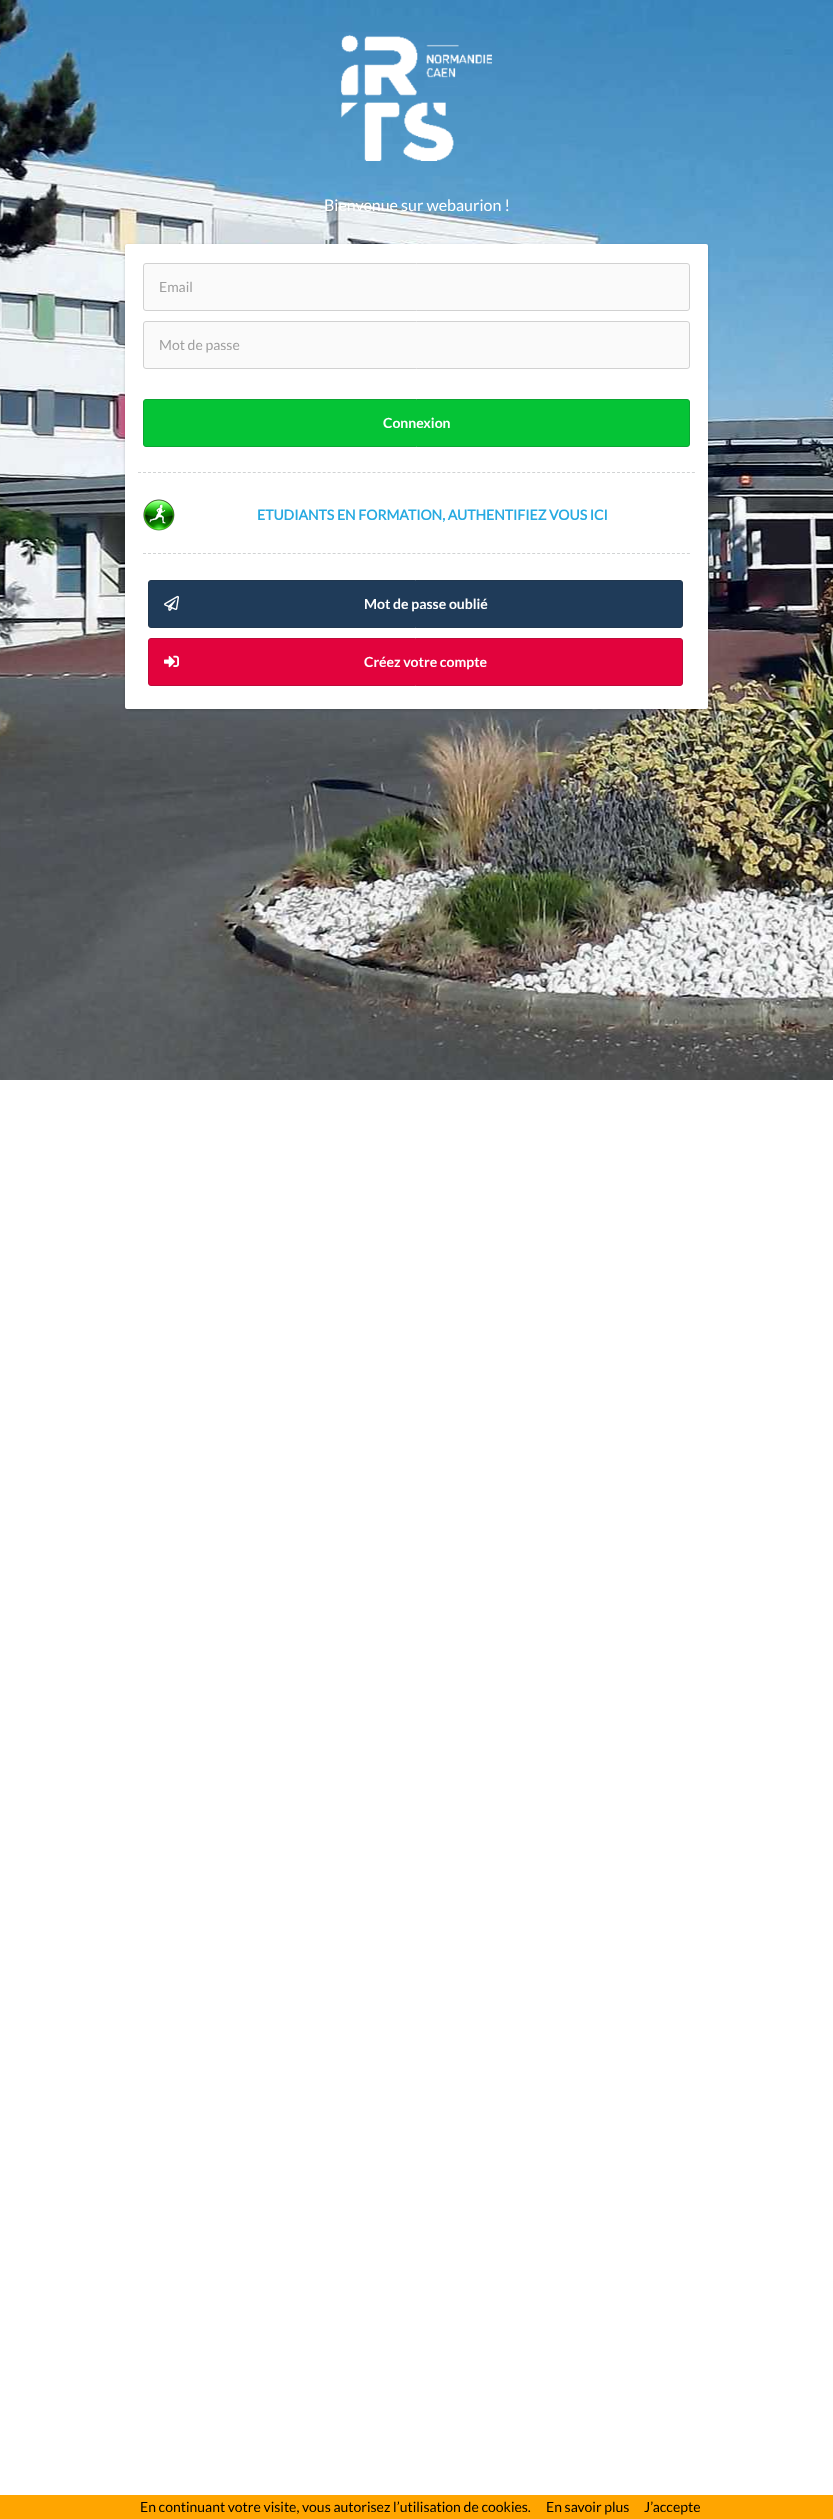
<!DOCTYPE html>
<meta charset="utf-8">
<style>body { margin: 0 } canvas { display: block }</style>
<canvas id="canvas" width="833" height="2519"></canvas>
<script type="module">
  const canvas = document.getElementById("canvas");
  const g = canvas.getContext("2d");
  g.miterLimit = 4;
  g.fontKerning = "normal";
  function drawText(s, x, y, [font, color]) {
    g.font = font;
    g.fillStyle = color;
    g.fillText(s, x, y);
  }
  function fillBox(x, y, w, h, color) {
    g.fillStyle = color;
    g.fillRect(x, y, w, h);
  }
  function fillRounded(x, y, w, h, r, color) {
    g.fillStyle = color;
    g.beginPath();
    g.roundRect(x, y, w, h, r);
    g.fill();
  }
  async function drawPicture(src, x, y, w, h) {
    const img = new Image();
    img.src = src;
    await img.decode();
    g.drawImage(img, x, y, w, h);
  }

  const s1 = ["16px Lato", "#FFFFFF"];
  const s2 = ["14px Lato", "#9F9F9F"];
  const s3 = ["bold 14px 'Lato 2'", "#FFFFFF"];
  const s4 = ["bold 14px Lato", "#27AAE1"];
  const s5 = ["14px Lato", "#000000"];

  fillBox(0, 0, 833, 2519, "#FFFFFF");
  await drawPicture("pic1.png", 0, 0, 833, 1080);
  await drawPicture("pic2.png", 341, 35, 151, 126);
  drawText("Bienvenue sur webaurion !", 324, 211, s1);
  g.fillStyle = "rgba(0, 0, 0, 0.2)";
  g.filter = "blur(1.5px)";
  g.beginPath();
  g.roundRect(125, 245, 583, 465, 2);
  g.fill();
  g.filter = "none";
  fillRounded(125, 244, 583, 465, 2, "#FFFFFF");
  g.fillStyle = "#FAFAFA";
  g.beginPath();
  g.roundRect(143.5, 263.5, 546, 47, 2.5);
  g.fill();
  g.strokeStyle = "#D1D1D1";
  g.stroke();
  drawText("Email", 159, 292, s2);
  g.fillStyle = "#FAFAFA";
  g.beginPath();
  g.roundRect(143.5, 321.5, 546, 47, 2.5);
  g.fill();
  g.stroke();
  drawText("Mot de passe", 159, 350, s2);
  g.fillStyle = "#05C436";
  g.beginPath();
  g.roundRect(143.5, 399.5, 546, 47, 2.5);
  g.fill();
  g.strokeStyle = "#0CA533";
  g.stroke();
  drawText("Connexion", 383, 428, s3);
  g.beginPath();
  g.moveTo(138, 472.5);
  g.lineTo(695, 472.5);
  g.strokeStyle = "#D1D3D4";
  g.setLineDash([3, 1.99]);
  g.stroke();
  await drawPicture("pic3.png", 143, 499, 32, 32);
  drawText("ETUDIANTS EN FORMATION, AUTHENTIFIEZ VOUS ICI", 257, 520, s4);
  g.beginPath();
  g.moveTo(143, 553.5);
  g.lineTo(690, 553.5);
  g.stroke();
  g.fillStyle = "#1F3B59";
  g.beginPath();
  g.roundRect(148.5, 580.5, 534, 47, 2.5);
  g.fill();
  g.strokeStyle = "#21374F";
  g.setLineDash([]);
  g.stroke();
  await drawPicture("pic4.png", 164, 595, 15, 16);
  drawText("Mot de passe oublié", 364, 609, s3);
  g.fillStyle = "#E2033D";
  g.beginPath();
  g.roundRect(148.5, 638.5, 534, 47, 2.5);
  g.fill();
  g.strokeStyle = "#BD0A39";
  g.stroke();
  await drawPicture("pic5.png", 164, 655, 15, 13);
  drawText("Créez votre compte", 364, 667, s3);
  fillBox(0, 2495, 833, 24, "#FFA500");
  drawText("En continuant votre visite, vous autorisez l’utilisation de cookies.", 140, 2512, s5);
  drawText("En savoir plus", 546, 2512, s5);
  drawText("J’accepte", 644, 2512, s5);
</script>
